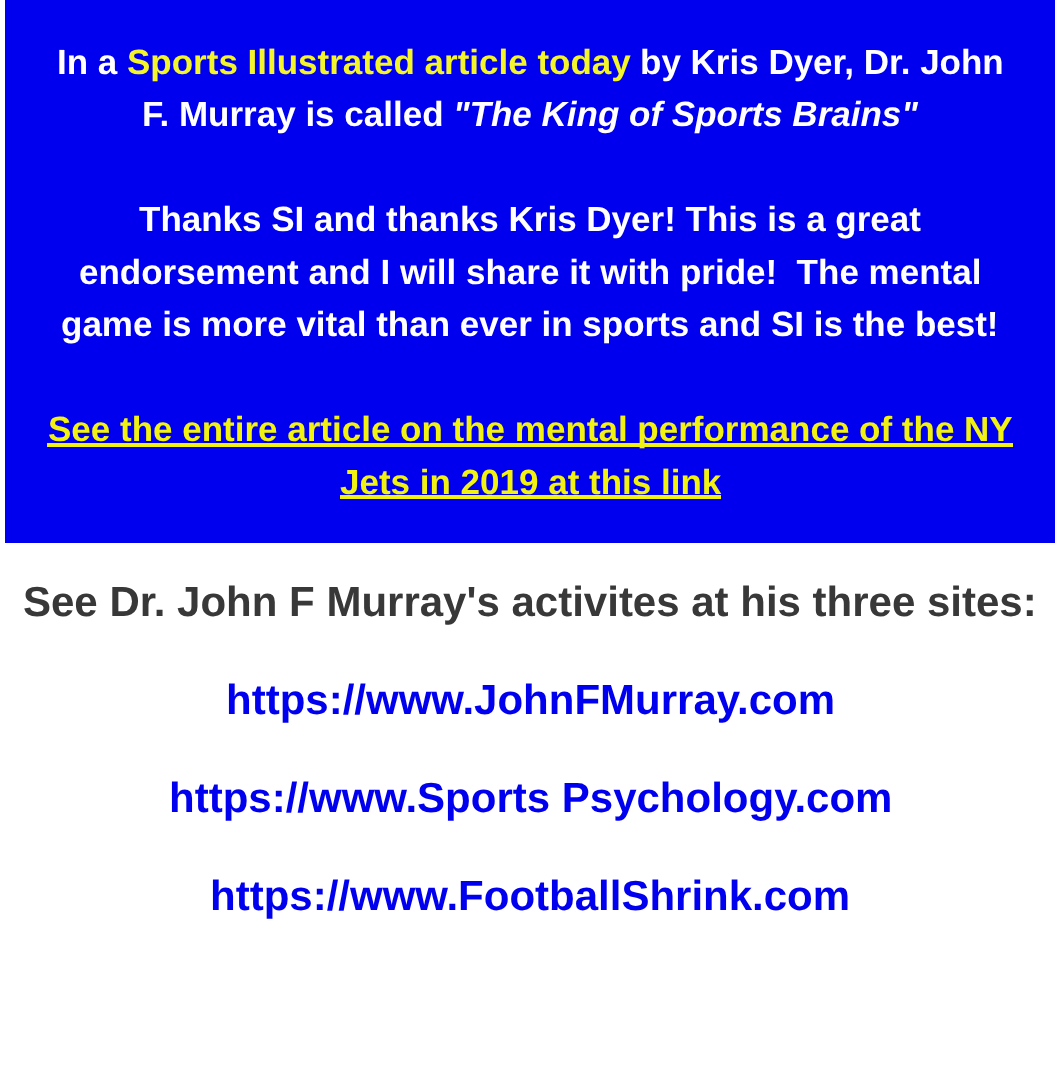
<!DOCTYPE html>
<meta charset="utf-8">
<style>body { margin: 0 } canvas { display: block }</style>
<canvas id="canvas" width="1059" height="1092"></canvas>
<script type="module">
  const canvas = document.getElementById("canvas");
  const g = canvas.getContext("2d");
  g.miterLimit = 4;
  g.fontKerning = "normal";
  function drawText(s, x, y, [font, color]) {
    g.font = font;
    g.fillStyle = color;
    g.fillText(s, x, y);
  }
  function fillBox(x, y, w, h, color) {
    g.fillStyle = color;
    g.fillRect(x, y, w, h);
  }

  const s1 = ["bold 35px Liberation Sans", "#FFFFFF"];
  const s2 = ["bold 35px Liberation Sans", "#F4F42A"];
  const s3 = ["italic bold 35px Liberation Sans", "#FFFFFF"];
  const s4 = ["bold 35px Liberation Sans", "#F2F212"];
  const s5 = ["bold 42px Liberation Sans", "#383838"];
  const s6 = ["bold 42px Liberation Sans", "#0000EE"];

  fillBox(0, 0, 1059, 1092, "#FFFFFF");
  fillBox(5, 0, 1050, 543, "#0000EE");
  drawText("In a", 57, 74, s1);
  drawText("Sports Illustrated article today", 127, 74, s2);
  drawText("by Kris Dyer, Dr. John", 640, 74, s1);
  drawText("F. Murray is called", 142, 126, s1);
  drawText("\"The King of Sports Brains\"", 453, 126, s3);
  drawText("Thanks SI and thanks Kris Dyer! This is a great", 139, 231, s1);
  drawText("endorsement and I will share it with pride!  The mental", 79, 284, s1);
  drawText("game is more vital than ever in sports and SI is the best!", 61, 336, s1);
  fillBox(47, 443, 966, 4, "#F2F212");
  drawText("See the entire article on the mental performance of the NY", 48, 441, s4);
  drawText("Jets in 2019 at this link", 340, 494, s4);
  fillBox(340, 495, 381, 4, "#F2F212");
  drawText("See Dr. John F Murray's activites at his three sites:", 23, 616, s5);
  drawText("https://www.JohnFMurray.com", 226, 714, s6);
  drawText("https://www.Sports Psychology.com", 169, 812, s6);
  drawText("https://www.FootballShrink.com", 210, 910, s6);
</script>
